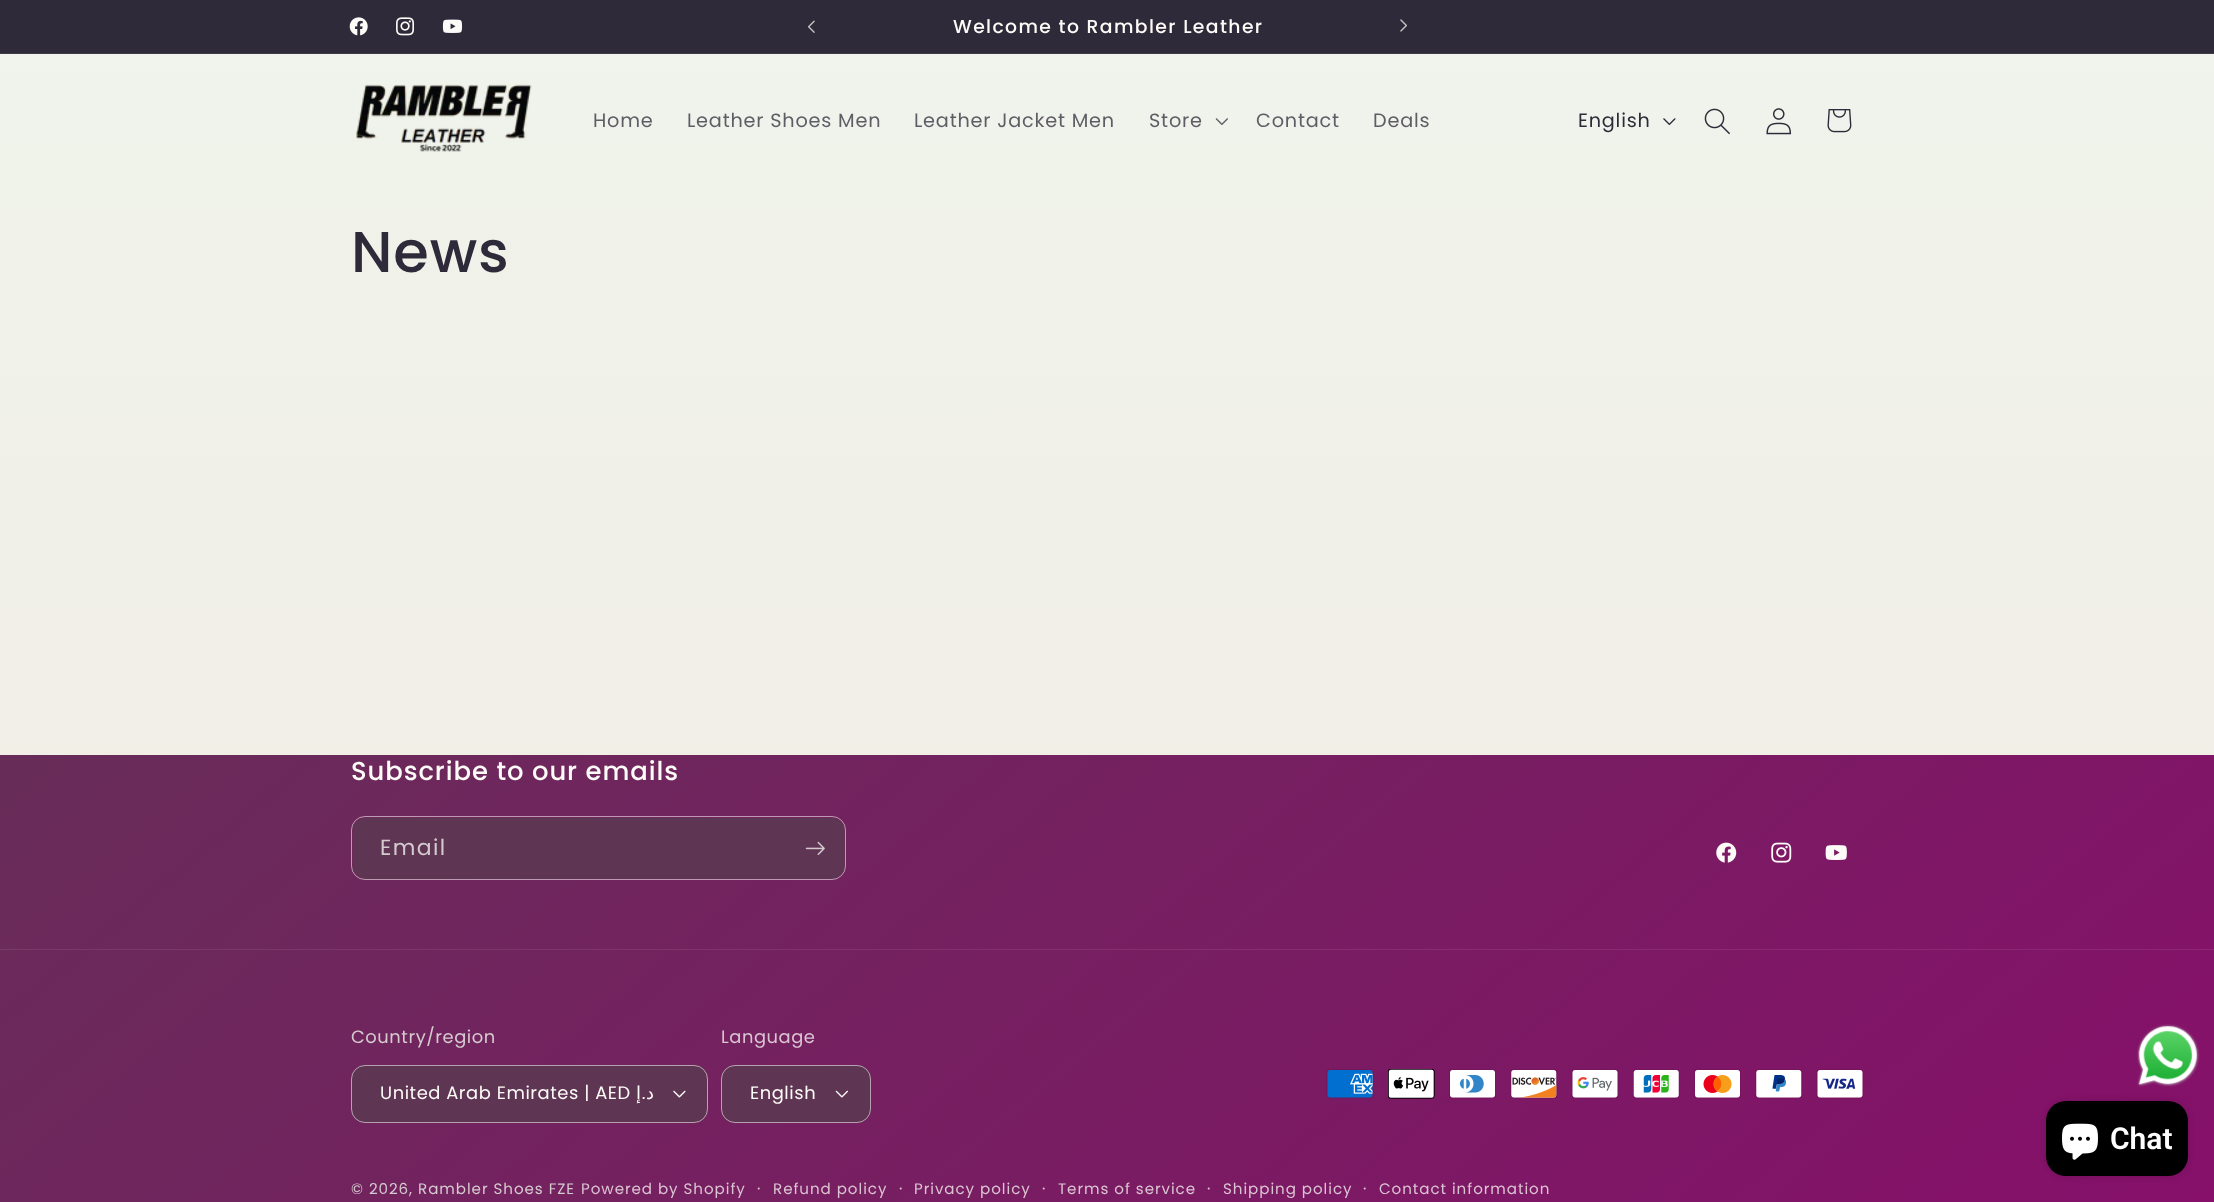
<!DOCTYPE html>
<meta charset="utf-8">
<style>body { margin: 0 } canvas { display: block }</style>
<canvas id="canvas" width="2214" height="1202"></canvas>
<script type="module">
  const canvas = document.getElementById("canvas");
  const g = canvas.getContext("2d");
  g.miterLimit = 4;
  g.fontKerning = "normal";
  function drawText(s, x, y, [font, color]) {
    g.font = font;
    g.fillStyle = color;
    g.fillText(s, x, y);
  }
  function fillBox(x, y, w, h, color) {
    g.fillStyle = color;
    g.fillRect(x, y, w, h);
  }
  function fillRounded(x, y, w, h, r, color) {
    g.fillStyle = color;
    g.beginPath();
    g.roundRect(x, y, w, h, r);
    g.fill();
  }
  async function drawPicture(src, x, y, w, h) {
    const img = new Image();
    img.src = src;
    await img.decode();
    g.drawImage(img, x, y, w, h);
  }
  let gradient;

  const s1 = ["500 18.75px Poppins", "#FDFBF7"];
  const s2 = ["19.25px Poppins", "#5F5C66"];
  const s3 = ["19.25px Poppins", "#2E2A39"];
  const s4 = ["500 57.5px Poppins", "#2E2A39"];
  const s5 = ["500 25.9px Poppins", "#FDFBF7"];
  const s6 = ["22px Poppins", "#D5CACE"];
  const s7 = ["17.9px Poppins", "#D5CACE"];
  const s8 = ["17.9px Poppins", "#FDFBF7"];
  const s9 = ["17.9px DejaVu Sans", "#FDFBF7"];
  const s10 = ["17.9px Poppins", "#DBC4D1"];
  const s11 = ["15.1px Poppins", "#D5CACE"];
  const s12 = ["15.1px Poppins", "#DBC4D1"];
  const s13 = ["16px Poppins", "#DBC4D1"];
  const s14 = ["600 30px Roboto", "#FFFFFF"];

  fillBox(0, 0, 2214, 1202, "#FFFFFF");
  gradient = g.createLinearGradient(1107, 0, 1108, 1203);
  gradient.addColorStop(0, "#F0F4EC");
  gradient.addColorStop(1, "#F1EBE2");
  g.fillStyle = gradient;
  g.fillRect(0, 54, 2214, 701);
  fillBox(0, 0, 2214, 53, "#2E2A39");
  fillBox(0, 53, 2214, 1, "#3F3B48");
  await drawPicture("pic1.png", 349, 17, 19, 19);
  await drawPicture("pic2.png", 396, 17, 18, 19);
  await drawPicture("pic3.png", 442, 19, 21, 14);
  await drawPicture("pic4.png", 808, 20, 7, 13);
  g.letterSpacing = "1.4px";
  drawText("Welcome to Rambler Leather", 953, 33, s1);
  await drawPicture("pic5.png", 1400, 19, 7, 13);
  await drawPicture("pic6.png", 356, 84, 176, 68);
  g.letterSpacing = "0.8px";
  drawText("Home", 593, 127, s2);
  drawText("Leather Shoes Men", 687, 127, s2);
  drawText("Leather Jacket Men", 914, 127, s2);
  drawText("Store", 1149, 127, s2);
  await drawPicture("pic7.png", 1215, 118, 13, 7);
  drawText("Contact", 1256, 127, s2);
  drawText("Deals", 1373, 127, s2);
  drawText("English", 1578, 127, s3);
  await drawPicture("pic8.png", 1663, 118, 13, 7);
  await drawPicture("pic9.png", 1704, 108, 26, 27);
  await drawPicture("pic10.png", 1766, 108, 26, 27);
  await drawPicture("pic11.png", 1827, 109, 25, 24);
  g.letterSpacing = "0.9px";
  drawText("News", 351, 272, s4);
  gradient = g.createLinearGradient(1861, 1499, 354, -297);
  gradient.addColorStop(0, "#86106A");
  gradient.addColorStop(1, "#5E3653");
  g.fillStyle = gradient;
  g.fillRect(0, 755, 2214, 447);
  gradient = g.createLinearGradient(1861, 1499, 354, -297);
  gradient.addColorStop(0, "#902375");
  gradient.addColorStop(1, "#6B4660");
  g.fillStyle = gradient;
  g.fillRect(0, 949, 2214, 1);
  drawText("Subscribe to our emails", 351, 780, s5);
  fillRounded(353, 818, 492, 61, 13, "#5E3653");
  g.beginPath();
  g.roundRect(351.5, 816.5, 494, 63, 13.5);
  g.strokeStyle = "rgba(253, 251, 247, 0.55)";
  g.stroke();
  g.letterSpacing = "1.4px";
  drawText("Email", 380, 855, s6);
  await drawPicture("pic12.png", 805, 841, 20, 14);
  await drawPicture("pic13.png", 1716, 842, 21, 21);
  await drawPicture("pic14.png", 1771, 842, 21, 21);
  await drawPicture("pic15.png", 1825, 845, 22, 15);
  g.letterSpacing = "0.55px";
  drawText("Country/region", 351, 1043, s7);
  fillRounded(351, 1065, 357, 58, 14, "#5E3653");
  await drawPicture("pic16.png", 673, 1090, 13, 8);
  g.beginPath();
  g.roundRect(351.5, 1065.5, 356, 57, 13.5);
  g.stroke();
  drawText("United Arab Emirates | AED", 380, 1099, s8);
  g.direction = "rtl";
  drawText("إ", 641, 1099, s9);
  drawText(".", 646, 1099, s8);
  drawText("د", 654, 1099, s9);
  g.direction = "ltr";
  drawText("Language", 721, 1043, s10);
  fillRounded(721, 1065, 150, 58, 14, "#5E3653");
  await drawPicture("pic17.png", 835, 1090, 13, 8);
  g.beginPath();
  g.roundRect(721.5, 1065.5, 149, 57, 13.5);
  g.stroke();
  drawText("English", 750, 1099, s8);
  await drawPicture("pic18.png", 1326, 1069, 48, 30);
  await drawPicture("pic19.png", 1388, 1069, 47, 30);
  await drawPicture("pic20.png", 1449, 1069, 47, 30);
  await drawPicture("pic21.png", 1510, 1069, 48, 30);
  await drawPicture("pic22.png", 1571, 1069, 48, 30);
  await drawPicture("pic23.png", 1633, 1069, 47, 30);
  await drawPicture("pic24.png", 1694, 1069, 47, 30);
  await drawPicture("pic25.png", 1755, 1069, 48, 30);
  await drawPicture("pic26.png", 1816, 1069, 48, 30);
  g.letterSpacing = "0.95px";
  drawText("© 2026, Rambler Shoes FZE", 351, 1194, s11);
  drawText("Powered by Shopify", 581, 1194, s12);
  drawText("·", 757, 1194, s13);
  drawText("Refund policy", 773, 1194, s12);
  drawText("·", 899, 1194, s13);
  drawText("Privacy policy", 914, 1194, s12);
  drawText("·", 1042, 1194, s13);
  drawText("Terms of service", 1058, 1194, s12);
  drawText("·", 1207, 1194, s13);
  drawText("Shipping policy", 1223, 1194, s12);
  drawText("·", 1363, 1194, s13);
  drawText("Contact information", 1379, 1194, s12);
  await drawPicture("pic27.png", 2137, 1024, 63, 63);
  g.fillStyle = "rgba(0, 0, 0, 0.15)";
  g.filter = "blur(3px)";
  g.beginPath();
  g.roundRect(2046, 1101, 142, 75, 20);
  g.fill();
  g.filter = "none";
  fillRounded(2046, 1101, 142, 75, 20, "#000000");
  await drawPicture("pic28.png", 2062, 1123, 36, 37);
  g.letterSpacing = "0px";
  drawText("Chat", 2110, 1149, s14);
</script>
